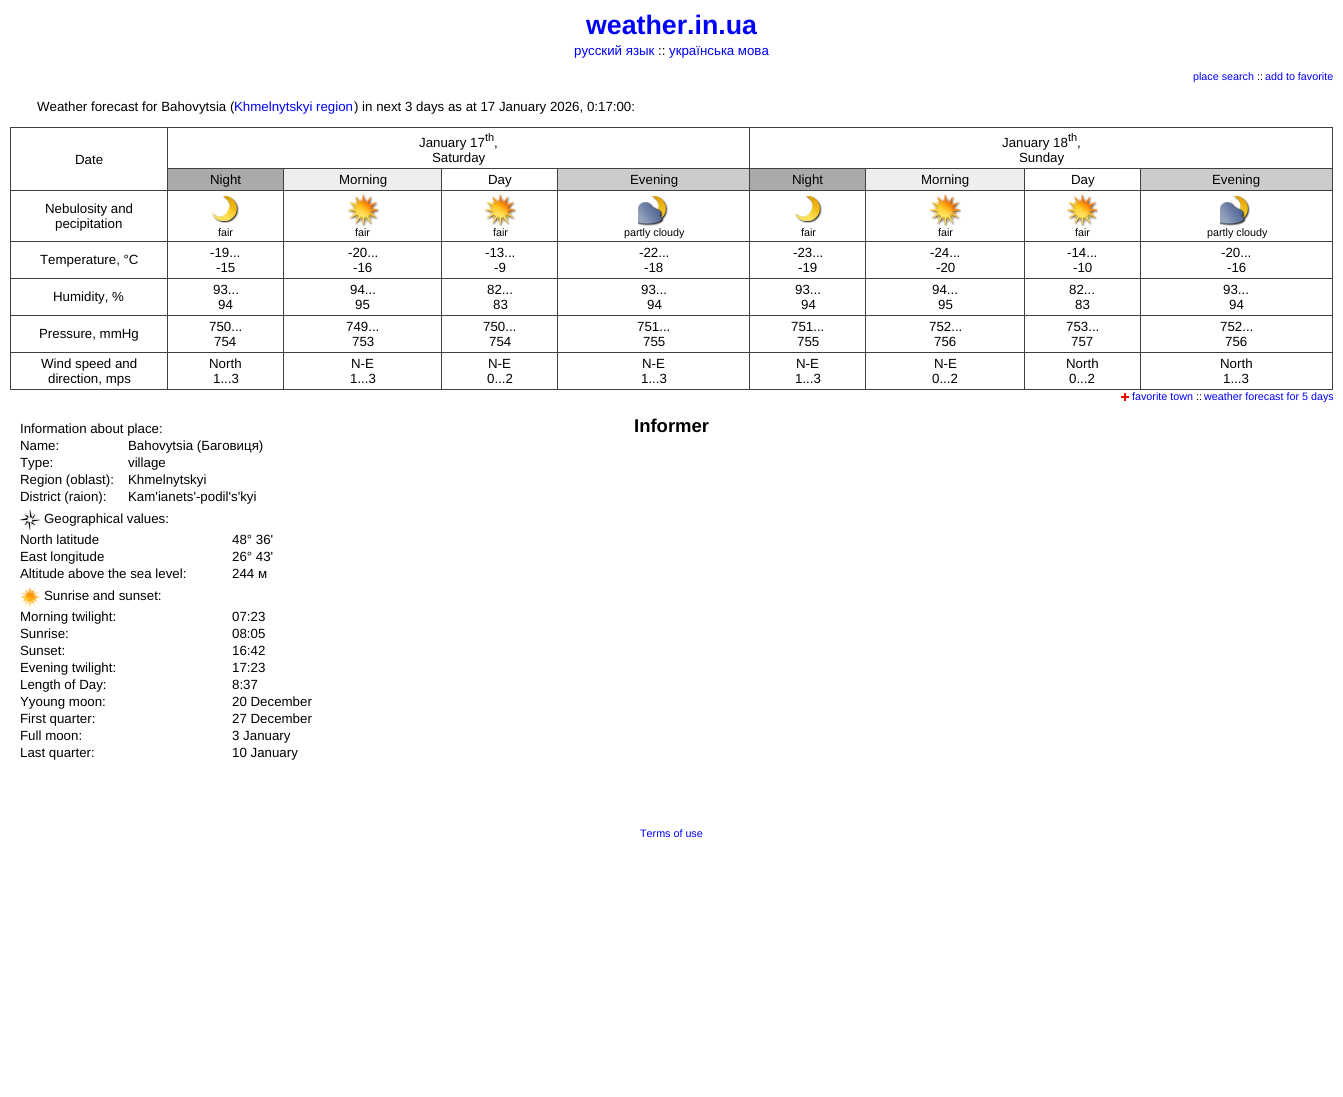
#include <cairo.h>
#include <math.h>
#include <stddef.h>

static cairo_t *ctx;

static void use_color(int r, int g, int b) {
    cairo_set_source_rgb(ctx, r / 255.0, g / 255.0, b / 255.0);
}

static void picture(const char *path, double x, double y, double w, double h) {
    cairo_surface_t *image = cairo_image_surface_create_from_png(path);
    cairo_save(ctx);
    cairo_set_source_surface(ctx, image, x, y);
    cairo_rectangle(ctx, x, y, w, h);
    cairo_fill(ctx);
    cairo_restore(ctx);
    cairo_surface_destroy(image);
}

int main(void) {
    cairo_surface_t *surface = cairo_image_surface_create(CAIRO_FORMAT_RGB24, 1343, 1097);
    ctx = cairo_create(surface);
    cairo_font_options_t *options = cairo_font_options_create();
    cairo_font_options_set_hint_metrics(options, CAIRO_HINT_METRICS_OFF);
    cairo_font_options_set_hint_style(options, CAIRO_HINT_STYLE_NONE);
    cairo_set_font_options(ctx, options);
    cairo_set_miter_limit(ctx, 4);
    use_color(255, 255, 255);
    cairo_paint(ctx);
    cairo_select_font_face(ctx, "Liberation Sans", CAIRO_FONT_SLANT_NORMAL, CAIRO_FONT_WEIGHT_BOLD);
    cairo_set_font_size(ctx, 26.75);
    use_color(0, 0, 255);
    cairo_move_to(ctx, 586, 34);
    cairo_show_text(ctx, "weather.in.ua");
    cairo_select_font_face(ctx, "Liberation Sans", CAIRO_FONT_SLANT_NORMAL, CAIRO_FONT_WEIGHT_NORMAL);
    cairo_set_font_size(ctx, 13.3);
    cairo_move_to(ctx, 574, 55);
    cairo_show_text(ctx, "русский язык");
    use_color(0, 0, 0);
    cairo_move_to(ctx, 658, 55);
    cairo_show_text(ctx, "::");
    use_color(0, 0, 255);
    cairo_move_to(ctx, 669, 55);
    cairo_show_text(ctx, "українська мова");
    cairo_set_font_size(ctx, 10.75);
    cairo_move_to(ctx, 1193, 80);
    cairo_show_text(ctx, "place search");
    use_color(0, 0, 0);
    cairo_move_to(ctx, 1257, 80);
    cairo_show_text(ctx, "::");
    use_color(0, 0, 255);
    cairo_move_to(ctx, 1265, 80);
    cairo_show_text(ctx, "add to favorite");
    cairo_set_font_size(ctx, 13.3);
    use_color(0, 0, 0);
    cairo_move_to(ctx, 37, 111);
    cairo_show_text(ctx, "Weather forecast for Bahovytsia (");
    use_color(0, 0, 255);
    cairo_move_to(ctx, 234, 111);
    cairo_show_text(ctx, "Khmelnytskyi region");
    use_color(0, 0, 0);
    cairo_move_to(ctx, 354, 111);
    cairo_show_text(ctx, ") in next 3 days as at 17 January 2026, 0:17:00:");
    use_color(64, 64, 64);
    cairo_rectangle(ctx, 749, 127, 584, 1);
    cairo_fill(ctx);
    cairo_rectangle(ctx, 1140, 168, 193, 1);
    cairo_fill(ctx);
    cairo_rectangle(ctx, 1140, 190, 193, 1);
    cairo_fill(ctx);
    cairo_rectangle(ctx, 1140, 241, 193, 1);
    cairo_fill(ctx);
    cairo_rectangle(ctx, 1140, 278, 193, 1);
    cairo_fill(ctx);
    cairo_rectangle(ctx, 1140, 315, 193, 1);
    cairo_fill(ctx);
    cairo_rectangle(ctx, 1140, 352, 193, 1);
    cairo_fill(ctx);
    cairo_rectangle(ctx, 1332, 352, 1, 38);
    cairo_fill(ctx);
    cairo_rectangle(ctx, 1140, 389, 193, 1);
    cairo_fill(ctx);
    cairo_rectangle(ctx, 1140, 352, 1, 38);
    cairo_fill(ctx);
    cairo_rectangle(ctx, 1024, 352, 117, 1);
    cairo_fill(ctx);
    cairo_rectangle(ctx, 1140, 315, 1, 38);
    cairo_fill(ctx);
    cairo_rectangle(ctx, 1024, 315, 117, 1);
    cairo_fill(ctx);
    cairo_rectangle(ctx, 1140, 278, 1, 38);
    cairo_fill(ctx);
    cairo_rectangle(ctx, 1024, 278, 117, 1);
    cairo_fill(ctx);
    cairo_rectangle(ctx, 1140, 241, 1, 38);
    cairo_fill(ctx);
    cairo_rectangle(ctx, 1024, 241, 117, 1);
    cairo_fill(ctx);
    cairo_rectangle(ctx, 1140, 190, 1, 52);
    cairo_fill(ctx);
    cairo_rectangle(ctx, 1024, 190, 117, 1);
    cairo_fill(ctx);
    cairo_rectangle(ctx, 1140, 168, 1, 23);
    cairo_fill(ctx);
    cairo_rectangle(ctx, 1024, 168, 117, 1);
    cairo_fill(ctx);
    cairo_rectangle(ctx, 1024, 389, 117, 1);
    cairo_fill(ctx);
    cairo_rectangle(ctx, 1024, 352, 1, 38);
    cairo_fill(ctx);
    cairo_rectangle(ctx, 865, 352, 160, 1);
    cairo_fill(ctx);
    cairo_rectangle(ctx, 1024, 315, 1, 38);
    cairo_fill(ctx);
    cairo_rectangle(ctx, 865, 315, 160, 1);
    cairo_fill(ctx);
    cairo_rectangle(ctx, 1024, 278, 1, 38);
    cairo_fill(ctx);
    cairo_rectangle(ctx, 865, 278, 160, 1);
    cairo_fill(ctx);
    cairo_rectangle(ctx, 1024, 241, 1, 38);
    cairo_fill(ctx);
    cairo_rectangle(ctx, 865, 241, 160, 1);
    cairo_fill(ctx);
    cairo_rectangle(ctx, 1024, 190, 1, 52);
    cairo_fill(ctx);
    cairo_rectangle(ctx, 865, 190, 160, 1);
    cairo_fill(ctx);
    cairo_rectangle(ctx, 1024, 168, 1, 23);
    cairo_fill(ctx);
    cairo_rectangle(ctx, 865, 168, 160, 1);
    cairo_fill(ctx);
    cairo_rectangle(ctx, 865, 389, 160, 1);
    cairo_fill(ctx);
    cairo_rectangle(ctx, 865, 352, 1, 38);
    cairo_fill(ctx);
    cairo_rectangle(ctx, 749, 352, 117, 1);
    cairo_fill(ctx);
    cairo_rectangle(ctx, 865, 315, 1, 38);
    cairo_fill(ctx);
    cairo_rectangle(ctx, 749, 315, 117, 1);
    cairo_fill(ctx);
    cairo_rectangle(ctx, 865, 278, 1, 38);
    cairo_fill(ctx);
    cairo_rectangle(ctx, 749, 278, 117, 1);
    cairo_fill(ctx);
    cairo_rectangle(ctx, 865, 241, 1, 38);
    cairo_fill(ctx);
    cairo_rectangle(ctx, 749, 241, 117, 1);
    cairo_fill(ctx);
    cairo_rectangle(ctx, 865, 190, 1, 52);
    cairo_fill(ctx);
    cairo_rectangle(ctx, 749, 190, 117, 1);
    cairo_fill(ctx);
    cairo_rectangle(ctx, 865, 168, 1, 23);
    cairo_fill(ctx);
    cairo_rectangle(ctx, 749, 168, 117, 1);
    cairo_fill(ctx);
    cairo_rectangle(ctx, 749, 389, 117, 1);
    cairo_fill(ctx);
    cairo_rectangle(ctx, 749, 352, 1, 38);
    cairo_fill(ctx);
    cairo_rectangle(ctx, 557, 352, 193, 1);
    cairo_fill(ctx);
    cairo_rectangle(ctx, 749, 315, 1, 38);
    cairo_fill(ctx);
    cairo_rectangle(ctx, 557, 315, 193, 1);
    cairo_fill(ctx);
    cairo_rectangle(ctx, 749, 278, 1, 38);
    cairo_fill(ctx);
    cairo_rectangle(ctx, 557, 278, 193, 1);
    cairo_fill(ctx);
    cairo_rectangle(ctx, 749, 241, 1, 38);
    cairo_fill(ctx);
    cairo_rectangle(ctx, 557, 241, 193, 1);
    cairo_fill(ctx);
    cairo_rectangle(ctx, 749, 190, 1, 52);
    cairo_fill(ctx);
    cairo_rectangle(ctx, 557, 190, 193, 1);
    cairo_fill(ctx);
    cairo_rectangle(ctx, 749, 168, 1, 23);
    cairo_fill(ctx);
    cairo_rectangle(ctx, 557, 168, 193, 1);
    cairo_fill(ctx);
    cairo_rectangle(ctx, 749, 127, 1, 42);
    cairo_fill(ctx);
    cairo_rectangle(ctx, 167, 127, 583, 1);
    cairo_fill(ctx);
    cairo_rectangle(ctx, 557, 389, 193, 1);
    cairo_fill(ctx);
    cairo_rectangle(ctx, 557, 352, 1, 38);
    cairo_fill(ctx);
    cairo_rectangle(ctx, 441, 352, 117, 1);
    cairo_fill(ctx);
    cairo_rectangle(ctx, 557, 315, 1, 38);
    cairo_fill(ctx);
    cairo_rectangle(ctx, 441, 315, 117, 1);
    cairo_fill(ctx);
    cairo_rectangle(ctx, 557, 278, 1, 38);
    cairo_fill(ctx);
    cairo_rectangle(ctx, 441, 278, 117, 1);
    cairo_fill(ctx);
    cairo_rectangle(ctx, 557, 241, 1, 38);
    cairo_fill(ctx);
    cairo_rectangle(ctx, 441, 241, 117, 1);
    cairo_fill(ctx);
    cairo_rectangle(ctx, 557, 190, 1, 52);
    cairo_fill(ctx);
    cairo_rectangle(ctx, 441, 190, 117, 1);
    cairo_fill(ctx);
    cairo_rectangle(ctx, 557, 168, 1, 23);
    cairo_fill(ctx);
    cairo_rectangle(ctx, 441, 168, 117, 1);
    cairo_fill(ctx);
    cairo_rectangle(ctx, 441, 389, 117, 1);
    cairo_fill(ctx);
    cairo_rectangle(ctx, 441, 352, 1, 38);
    cairo_fill(ctx);
    cairo_rectangle(ctx, 283, 352, 159, 1);
    cairo_fill(ctx);
    cairo_rectangle(ctx, 441, 315, 1, 38);
    cairo_fill(ctx);
    cairo_rectangle(ctx, 283, 315, 159, 1);
    cairo_fill(ctx);
    cairo_rectangle(ctx, 441, 278, 1, 38);
    cairo_fill(ctx);
    cairo_rectangle(ctx, 283, 278, 159, 1);
    cairo_fill(ctx);
    cairo_rectangle(ctx, 441, 241, 1, 38);
    cairo_fill(ctx);
    cairo_rectangle(ctx, 283, 241, 159, 1);
    cairo_fill(ctx);
    cairo_rectangle(ctx, 441, 190, 1, 52);
    cairo_fill(ctx);
    cairo_rectangle(ctx, 283, 190, 159, 1);
    cairo_fill(ctx);
    cairo_rectangle(ctx, 441, 168, 1, 23);
    cairo_fill(ctx);
    cairo_rectangle(ctx, 283, 168, 159, 1);
    cairo_fill(ctx);
    cairo_rectangle(ctx, 283, 389, 159, 1);
    cairo_fill(ctx);
    cairo_rectangle(ctx, 283, 352, 1, 38);
    cairo_fill(ctx);
    cairo_rectangle(ctx, 167, 352, 117, 1);
    cairo_fill(ctx);
    cairo_rectangle(ctx, 283, 315, 1, 38);
    cairo_fill(ctx);
    cairo_rectangle(ctx, 167, 315, 117, 1);
    cairo_fill(ctx);
    cairo_rectangle(ctx, 283, 278, 1, 38);
    cairo_fill(ctx);
    cairo_rectangle(ctx, 167, 278, 117, 1);
    cairo_fill(ctx);
    cairo_rectangle(ctx, 283, 241, 1, 38);
    cairo_fill(ctx);
    cairo_rectangle(ctx, 167, 241, 117, 1);
    cairo_fill(ctx);
    cairo_rectangle(ctx, 283, 190, 1, 52);
    cairo_fill(ctx);
    cairo_rectangle(ctx, 167, 190, 117, 1);
    cairo_fill(ctx);
    cairo_rectangle(ctx, 283, 168, 1, 23);
    cairo_fill(ctx);
    cairo_rectangle(ctx, 167, 168, 117, 1);
    cairo_fill(ctx);
    cairo_rectangle(ctx, 167, 389, 117, 1);
    cairo_fill(ctx);
    cairo_rectangle(ctx, 167, 352, 1, 38);
    cairo_fill(ctx);
    cairo_rectangle(ctx, 10, 352, 158, 1);
    cairo_fill(ctx);
    cairo_rectangle(ctx, 167, 315, 1, 38);
    cairo_fill(ctx);
    cairo_rectangle(ctx, 10, 315, 158, 1);
    cairo_fill(ctx);
    cairo_rectangle(ctx, 167, 278, 1, 38);
    cairo_fill(ctx);
    cairo_rectangle(ctx, 10, 278, 158, 1);
    cairo_fill(ctx);
    cairo_rectangle(ctx, 167, 241, 1, 38);
    cairo_fill(ctx);
    cairo_rectangle(ctx, 10, 241, 158, 1);
    cairo_fill(ctx);
    cairo_rectangle(ctx, 167, 190, 1, 52);
    cairo_fill(ctx);
    cairo_rectangle(ctx, 10, 190, 158, 1);
    cairo_fill(ctx);
    cairo_rectangle(ctx, 167, 168, 1, 23);
    cairo_fill(ctx);
    cairo_rectangle(ctx, 167, 127, 1, 42);
    cairo_fill(ctx);
    cairo_rectangle(ctx, 10, 127, 158, 1);
    cairo_fill(ctx);
    cairo_rectangle(ctx, 10, 389, 158, 1);
    cairo_fill(ctx);
    cairo_rectangle(ctx, 10, 352, 1, 38);
    cairo_fill(ctx);
    cairo_rectangle(ctx, 10, 315, 1, 38);
    cairo_fill(ctx);
    cairo_rectangle(ctx, 10, 278, 1, 38);
    cairo_fill(ctx);
    cairo_rectangle(ctx, 10, 241, 1, 38);
    cairo_fill(ctx);
    cairo_rectangle(ctx, 10, 190, 1, 52);
    cairo_fill(ctx);
    cairo_rectangle(ctx, 10, 127, 1, 64);
    cairo_fill(ctx);
    use_color(0, 0, 0);
    cairo_move_to(ctx, 75, 164);
    cairo_show_text(ctx, "Date");
    cairo_move_to(ctx, 419, 147);
    cairo_show_text(ctx, "January 17");
    cairo_set_font_size(ctx, 11);
    cairo_move_to(ctx, 485, 141);
    cairo_show_text(ctx, "th");
    cairo_set_font_size(ctx, 13.3);
    cairo_move_to(ctx, 494, 147);
    cairo_show_text(ctx, ",");
    cairo_move_to(ctx, 432, 162);
    cairo_show_text(ctx, "Saturday");
    use_color(64, 64, 64);
    cairo_rectangle(ctx, 1332, 315, 1, 38);
    cairo_fill(ctx);
    cairo_rectangle(ctx, 1332, 278, 1, 38);
    cairo_fill(ctx);
    cairo_rectangle(ctx, 1332, 241, 1, 38);
    cairo_fill(ctx);
    cairo_rectangle(ctx, 1332, 190, 1, 52);
    cairo_fill(ctx);
    cairo_rectangle(ctx, 1332, 168, 1, 23);
    cairo_fill(ctx);
    cairo_rectangle(ctx, 1332, 127, 1, 42);
    cairo_fill(ctx);
    use_color(0, 0, 0);
    cairo_move_to(ctx, 1002, 147);
    cairo_show_text(ctx, "January 18");
    cairo_set_font_size(ctx, 11);
    cairo_move_to(ctx, 1068, 141);
    cairo_show_text(ctx, "th");
    cairo_set_font_size(ctx, 13.3);
    cairo_move_to(ctx, 1077, 147);
    cairo_show_text(ctx, ",");
    cairo_move_to(ctx, 1019, 162);
    cairo_show_text(ctx, "Sunday");
    use_color(170, 170, 170);
    cairo_rectangle(ctx, 168, 169, 115, 21);
    cairo_fill(ctx);
    use_color(0, 0, 0);
    cairo_move_to(ctx, 210, 184);
    cairo_show_text(ctx, "Night");
    use_color(238, 238, 238);
    cairo_rectangle(ctx, 284, 169, 157, 21);
    cairo_fill(ctx);
    use_color(0, 0, 0);
    cairo_move_to(ctx, 339, 184);
    cairo_show_text(ctx, "Morning");
    cairo_move_to(ctx, 488, 184);
    cairo_show_text(ctx, "Day");
    use_color(204, 204, 204);
    cairo_rectangle(ctx, 558, 169, 191, 21);
    cairo_fill(ctx);
    use_color(0, 0, 0);
    cairo_move_to(ctx, 630, 184);
    cairo_show_text(ctx, "Evening");
    use_color(170, 170, 170);
    cairo_rectangle(ctx, 750, 169, 115, 21);
    cairo_fill(ctx);
    use_color(0, 0, 0);
    cairo_move_to(ctx, 792, 184);
    cairo_show_text(ctx, "Night");
    use_color(238, 238, 238);
    cairo_rectangle(ctx, 866, 169, 158, 21);
    cairo_fill(ctx);
    use_color(0, 0, 0);
    cairo_move_to(ctx, 921, 184);
    cairo_show_text(ctx, "Morning");
    cairo_move_to(ctx, 1071, 184);
    cairo_show_text(ctx, "Day");
    use_color(204, 204, 204);
    cairo_rectangle(ctx, 1141, 169, 191, 21);
    cairo_fill(ctx);
    use_color(0, 0, 0);
    cairo_move_to(ctx, 1212, 184);
    cairo_show_text(ctx, "Evening");
    cairo_move_to(ctx, 45, 213);
    cairo_show_text(ctx, "Nebulosity and");
    cairo_move_to(ctx, 55, 228);
    cairo_show_text(ctx, "pecipitation");
    picture("img1.png", 212, 196, 27, 27);
    cairo_set_font_size(ctx, 10.75);
    cairo_move_to(ctx, 218, 236);
    cairo_show_text(ctx, "fair");
    picture("img2.png", 347, 194, 32, 32);
    cairo_move_to(ctx, 355, 236);
    cairo_show_text(ctx, "fair");
    picture("img2.png", 484, 194, 32, 32);
    cairo_move_to(ctx, 493, 236);
    cairo_show_text(ctx, "fair");
    picture("img3.png", 638, 196, 30, 30);
    cairo_move_to(ctx, 624, 236);
    cairo_show_text(ctx, "partly cloudy");
    picture("img1.png", 795, 196, 27, 27);
    cairo_move_to(ctx, 801, 236);
    cairo_show_text(ctx, "fair");
    picture("img2.png", 929, 194, 32, 32);
    cairo_move_to(ctx, 938, 236);
    cairo_show_text(ctx, "fair");
    picture("img2.png", 1066, 194, 32, 32);
    cairo_move_to(ctx, 1075, 236);
    cairo_show_text(ctx, "fair");
    picture("img3.png", 1220, 196, 30, 30);
    cairo_move_to(ctx, 1207, 236);
    cairo_show_text(ctx, "partly cloudy");
    cairo_set_font_size(ctx, 13.3);
    cairo_move_to(ctx, 40, 264);
    cairo_show_text(ctx, "Temperature, °C");
    cairo_move_to(ctx, 210, 257);
    cairo_show_text(ctx, "-19...");
    cairo_move_to(ctx, 216, 272);
    cairo_show_text(ctx, "-15");
    cairo_move_to(ctx, 348, 257);
    cairo_show_text(ctx, "-20...");
    cairo_move_to(ctx, 353, 272);
    cairo_show_text(ctx, "-16");
    cairo_move_to(ctx, 485, 257);
    cairo_show_text(ctx, "-13...");
    cairo_move_to(ctx, 494, 272);
    cairo_show_text(ctx, "-9");
    cairo_move_to(ctx, 639, 257);
    cairo_show_text(ctx, "-22...");
    cairo_move_to(ctx, 644, 272);
    cairo_show_text(ctx, "-18");
    cairo_move_to(ctx, 793, 257);
    cairo_show_text(ctx, "-23...");
    cairo_move_to(ctx, 798, 272);
    cairo_show_text(ctx, "-19");
    cairo_move_to(ctx, 930, 257);
    cairo_show_text(ctx, "-24...");
    cairo_move_to(ctx, 936, 272);
    cairo_show_text(ctx, "-20");
    cairo_move_to(ctx, 1067, 257);
    cairo_show_text(ctx, "-14...");
    cairo_move_to(ctx, 1073, 272);
    cairo_show_text(ctx, "-10");
    cairo_move_to(ctx, 1221, 257);
    cairo_show_text(ctx, "-20...");
    cairo_move_to(ctx, 1227, 272);
    cairo_show_text(ctx, "-16");
    cairo_move_to(ctx, 53, 301);
    cairo_show_text(ctx, "Humidity, %");
    cairo_move_to(ctx, 213, 294);
    cairo_show_text(ctx, "93...");
    cairo_move_to(ctx, 218, 309);
    cairo_show_text(ctx, "94");
    cairo_move_to(ctx, 350, 294);
    cairo_show_text(ctx, "94...");
    cairo_move_to(ctx, 355, 309);
    cairo_show_text(ctx, "95");
    cairo_move_to(ctx, 487, 294);
    cairo_show_text(ctx, "82...");
    cairo_move_to(ctx, 493, 309);
    cairo_show_text(ctx, "83");
    cairo_move_to(ctx, 641, 294);
    cairo_show_text(ctx, "93...");
    cairo_move_to(ctx, 647, 309);
    cairo_show_text(ctx, "94");
    cairo_move_to(ctx, 795, 294);
    cairo_show_text(ctx, "93...");
    cairo_move_to(ctx, 801, 309);
    cairo_show_text(ctx, "94");
    cairo_move_to(ctx, 932, 294);
    cairo_show_text(ctx, "94...");
    cairo_move_to(ctx, 938, 309);
    cairo_show_text(ctx, "95");
    cairo_move_to(ctx, 1069, 294);
    cairo_show_text(ctx, "82...");
    cairo_move_to(ctx, 1075, 309);
    cairo_show_text(ctx, "83");
    cairo_move_to(ctx, 1223, 294);
    cairo_show_text(ctx, "93...");
    cairo_move_to(ctx, 1229, 309);
    cairo_show_text(ctx, "94");
    cairo_move_to(ctx, 39, 338);
    cairo_show_text(ctx, "Pressure, mmHg");
    cairo_move_to(ctx, 209, 331);
    cairo_show_text(ctx, "750...");
    cairo_move_to(ctx, 214, 346);
    cairo_show_text(ctx, "754");
    cairo_move_to(ctx, 346, 331);
    cairo_show_text(ctx, "749...");
    cairo_move_to(ctx, 352, 346);
    cairo_show_text(ctx, "753");
    cairo_move_to(ctx, 483, 331);
    cairo_show_text(ctx, "750...");
    cairo_move_to(ctx, 489, 346);
    cairo_show_text(ctx, "754");
    cairo_move_to(ctx, 637, 331);
    cairo_show_text(ctx, "751...");
    cairo_move_to(ctx, 643, 346);
    cairo_show_text(ctx, "755");
    cairo_move_to(ctx, 791, 331);
    cairo_show_text(ctx, "751...");
    cairo_move_to(ctx, 797, 346);
    cairo_show_text(ctx, "755");
    cairo_move_to(ctx, 929, 331);
    cairo_show_text(ctx, "752...");
    cairo_move_to(ctx, 934, 346);
    cairo_show_text(ctx, "756");
    cairo_move_to(ctx, 1066, 331);
    cairo_show_text(ctx, "753...");
    cairo_move_to(ctx, 1071, 346);
    cairo_show_text(ctx, "757");
    cairo_move_to(ctx, 1220, 331);
    cairo_show_text(ctx, "752...");
    cairo_move_to(ctx, 1225, 346);
    cairo_show_text(ctx, "756");
    cairo_move_to(ctx, 41, 368);
    cairo_show_text(ctx, "Wind speed and");
    cairo_move_to(ctx, 48, 383);
    cairo_show_text(ctx, "direction, mps");
    cairo_move_to(ctx, 209, 368);
    cairo_show_text(ctx, "North");
    cairo_move_to(ctx, 213, 383);
    cairo_show_text(ctx, "1...3");
    cairo_move_to(ctx, 351, 368);
    cairo_show_text(ctx, "N-E");
    cairo_move_to(ctx, 350, 383);
    cairo_show_text(ctx, "1...3");
    cairo_move_to(ctx, 488, 368);
    cairo_show_text(ctx, "N-E");
    cairo_move_to(ctx, 487, 383);
    cairo_show_text(ctx, "0...2");
    cairo_move_to(ctx, 642, 368);
    cairo_show_text(ctx, "N-E");
    cairo_move_to(ctx, 641, 383);
    cairo_show_text(ctx, "1...3");
    cairo_move_to(ctx, 796, 368);
    cairo_show_text(ctx, "N-E");
    cairo_move_to(ctx, 795, 383);
    cairo_show_text(ctx, "1...3");
    cairo_move_to(ctx, 934, 368);
    cairo_show_text(ctx, "N-E");
    cairo_move_to(ctx, 932, 383);
    cairo_show_text(ctx, "0...2");
    cairo_move_to(ctx, 1066, 368);
    cairo_show_text(ctx, "North");
    cairo_move_to(ctx, 1069, 383);
    cairo_show_text(ctx, "0...2");
    cairo_move_to(ctx, 1220, 368);
    cairo_show_text(ctx, "North");
    cairo_move_to(ctx, 1223, 383);
    cairo_show_text(ctx, "1...3");
    picture("img4.png", 1121, 393, 8, 8);
    cairo_set_font_size(ctx, 10.75);
    use_color(0, 0, 255);
    cairo_move_to(ctx, 1132, 400);
    cairo_show_text(ctx, "favorite town");
    use_color(0, 0, 0);
    cairo_move_to(ctx, 1196, 400);
    cairo_show_text(ctx, "::");
    use_color(0, 0, 255);
    cairo_move_to(ctx, 1204, 400);
    cairo_show_text(ctx, "weather forecast for 5 days");
    cairo_set_font_size(ctx, 13.3);
    use_color(0, 0, 0);
    cairo_move_to(ctx, 20, 433);
    cairo_show_text(ctx, "Information about place:");
    cairo_move_to(ctx, 20, 450);
    cairo_show_text(ctx, "Name:");
    cairo_move_to(ctx, 128, 450);
    cairo_show_text(ctx, "Bahovytsia (Баговиця)");
    cairo_move_to(ctx, 20, 467);
    cairo_show_text(ctx, "Type:");
    cairo_move_to(ctx, 128, 467);
    cairo_show_text(ctx, "village");
    cairo_move_to(ctx, 20, 484);
    cairo_show_text(ctx, "Region (oblast):");
    cairo_move_to(ctx, 128, 484);
    cairo_show_text(ctx, "Khmelnytskyi");
    cairo_move_to(ctx, 20, 501);
    cairo_show_text(ctx, "District (raion):");
    cairo_move_to(ctx, 128, 501);
    cairo_show_text(ctx, "Kam'ianets'-podil's'kyi");
    picture("img5.png", 20, 510, 20, 20);
    cairo_move_to(ctx, 44, 523);
    cairo_show_text(ctx, "Geographical values:");
    cairo_move_to(ctx, 20, 544);
    cairo_show_text(ctx, "North latitude");
    cairo_move_to(ctx, 232, 544);
    cairo_show_text(ctx, "48° 36'");
    cairo_move_to(ctx, 20, 561);
    cairo_show_text(ctx, "East longitude");
    cairo_move_to(ctx, 232, 561);
    cairo_show_text(ctx, "26° 43'");
    cairo_move_to(ctx, 20, 578);
    cairo_show_text(ctx, "Altitude above the sea level:");
    cairo_move_to(ctx, 232, 578);
    cairo_show_text(ctx, "244 м");
    picture("img6.png", 20, 587, 20, 20);
    cairo_move_to(ctx, 44, 600);
    cairo_show_text(ctx, "Sunrise and sunset:");
    cairo_move_to(ctx, 20, 621);
    cairo_show_text(ctx, "Morning twilight:");
    cairo_move_to(ctx, 232, 621);
    cairo_show_text(ctx, "07:23");
    cairo_move_to(ctx, 20, 638);
    cairo_show_text(ctx, "Sunrise:");
    cairo_move_to(ctx, 232, 638);
    cairo_show_text(ctx, "08:05");
    cairo_move_to(ctx, 20, 655);
    cairo_show_text(ctx, "Sunset:");
    cairo_move_to(ctx, 232, 655);
    cairo_show_text(ctx, "16:42");
    cairo_move_to(ctx, 20, 672);
    cairo_show_text(ctx, "Evening twilight:");
    cairo_move_to(ctx, 232, 672);
    cairo_show_text(ctx, "17:23");
    cairo_move_to(ctx, 20, 689);
    cairo_show_text(ctx, "Length of Day:");
    cairo_move_to(ctx, 232, 689);
    cairo_show_text(ctx, "8:37");
    cairo_move_to(ctx, 20, 706);
    cairo_show_text(ctx, "Yyoung moon:");
    cairo_move_to(ctx, 232, 706);
    cairo_show_text(ctx, "20 December");
    cairo_move_to(ctx, 20, 723);
    cairo_show_text(ctx, "First quarter:");
    cairo_move_to(ctx, 232, 723);
    cairo_show_text(ctx, "27 December");
    cairo_move_to(ctx, 20, 740);
    cairo_show_text(ctx, "Full moon:");
    cairo_move_to(ctx, 232, 740);
    cairo_show_text(ctx, "3 January");
    cairo_move_to(ctx, 20, 757);
    cairo_show_text(ctx, "Last quarter:");
    cairo_move_to(ctx, 232, 757);
    cairo_show_text(ctx, "10 January");
    cairo_select_font_face(ctx, "Liberation Sans", CAIRO_FONT_SLANT_NORMAL, CAIRO_FONT_WEIGHT_BOLD);
    cairo_set_font_size(ctx, 18.5);
    cairo_move_to(ctx, 634, 432);
    cairo_show_text(ctx, "Informer");
    cairo_select_font_face(ctx, "Liberation Sans", CAIRO_FONT_SLANT_NORMAL, CAIRO_FONT_WEIGHT_NORMAL);
    cairo_set_font_size(ctx, 10.75);
    use_color(0, 0, 255);
    cairo_move_to(ctx, 640, 837);
    cairo_show_text(ctx, "Terms of use");
    cairo_surface_write_to_png(surface, "result.png");
    cairo_font_options_destroy(options);
    cairo_destroy(ctx);
    cairo_surface_destroy(surface);
    return 0;
}
